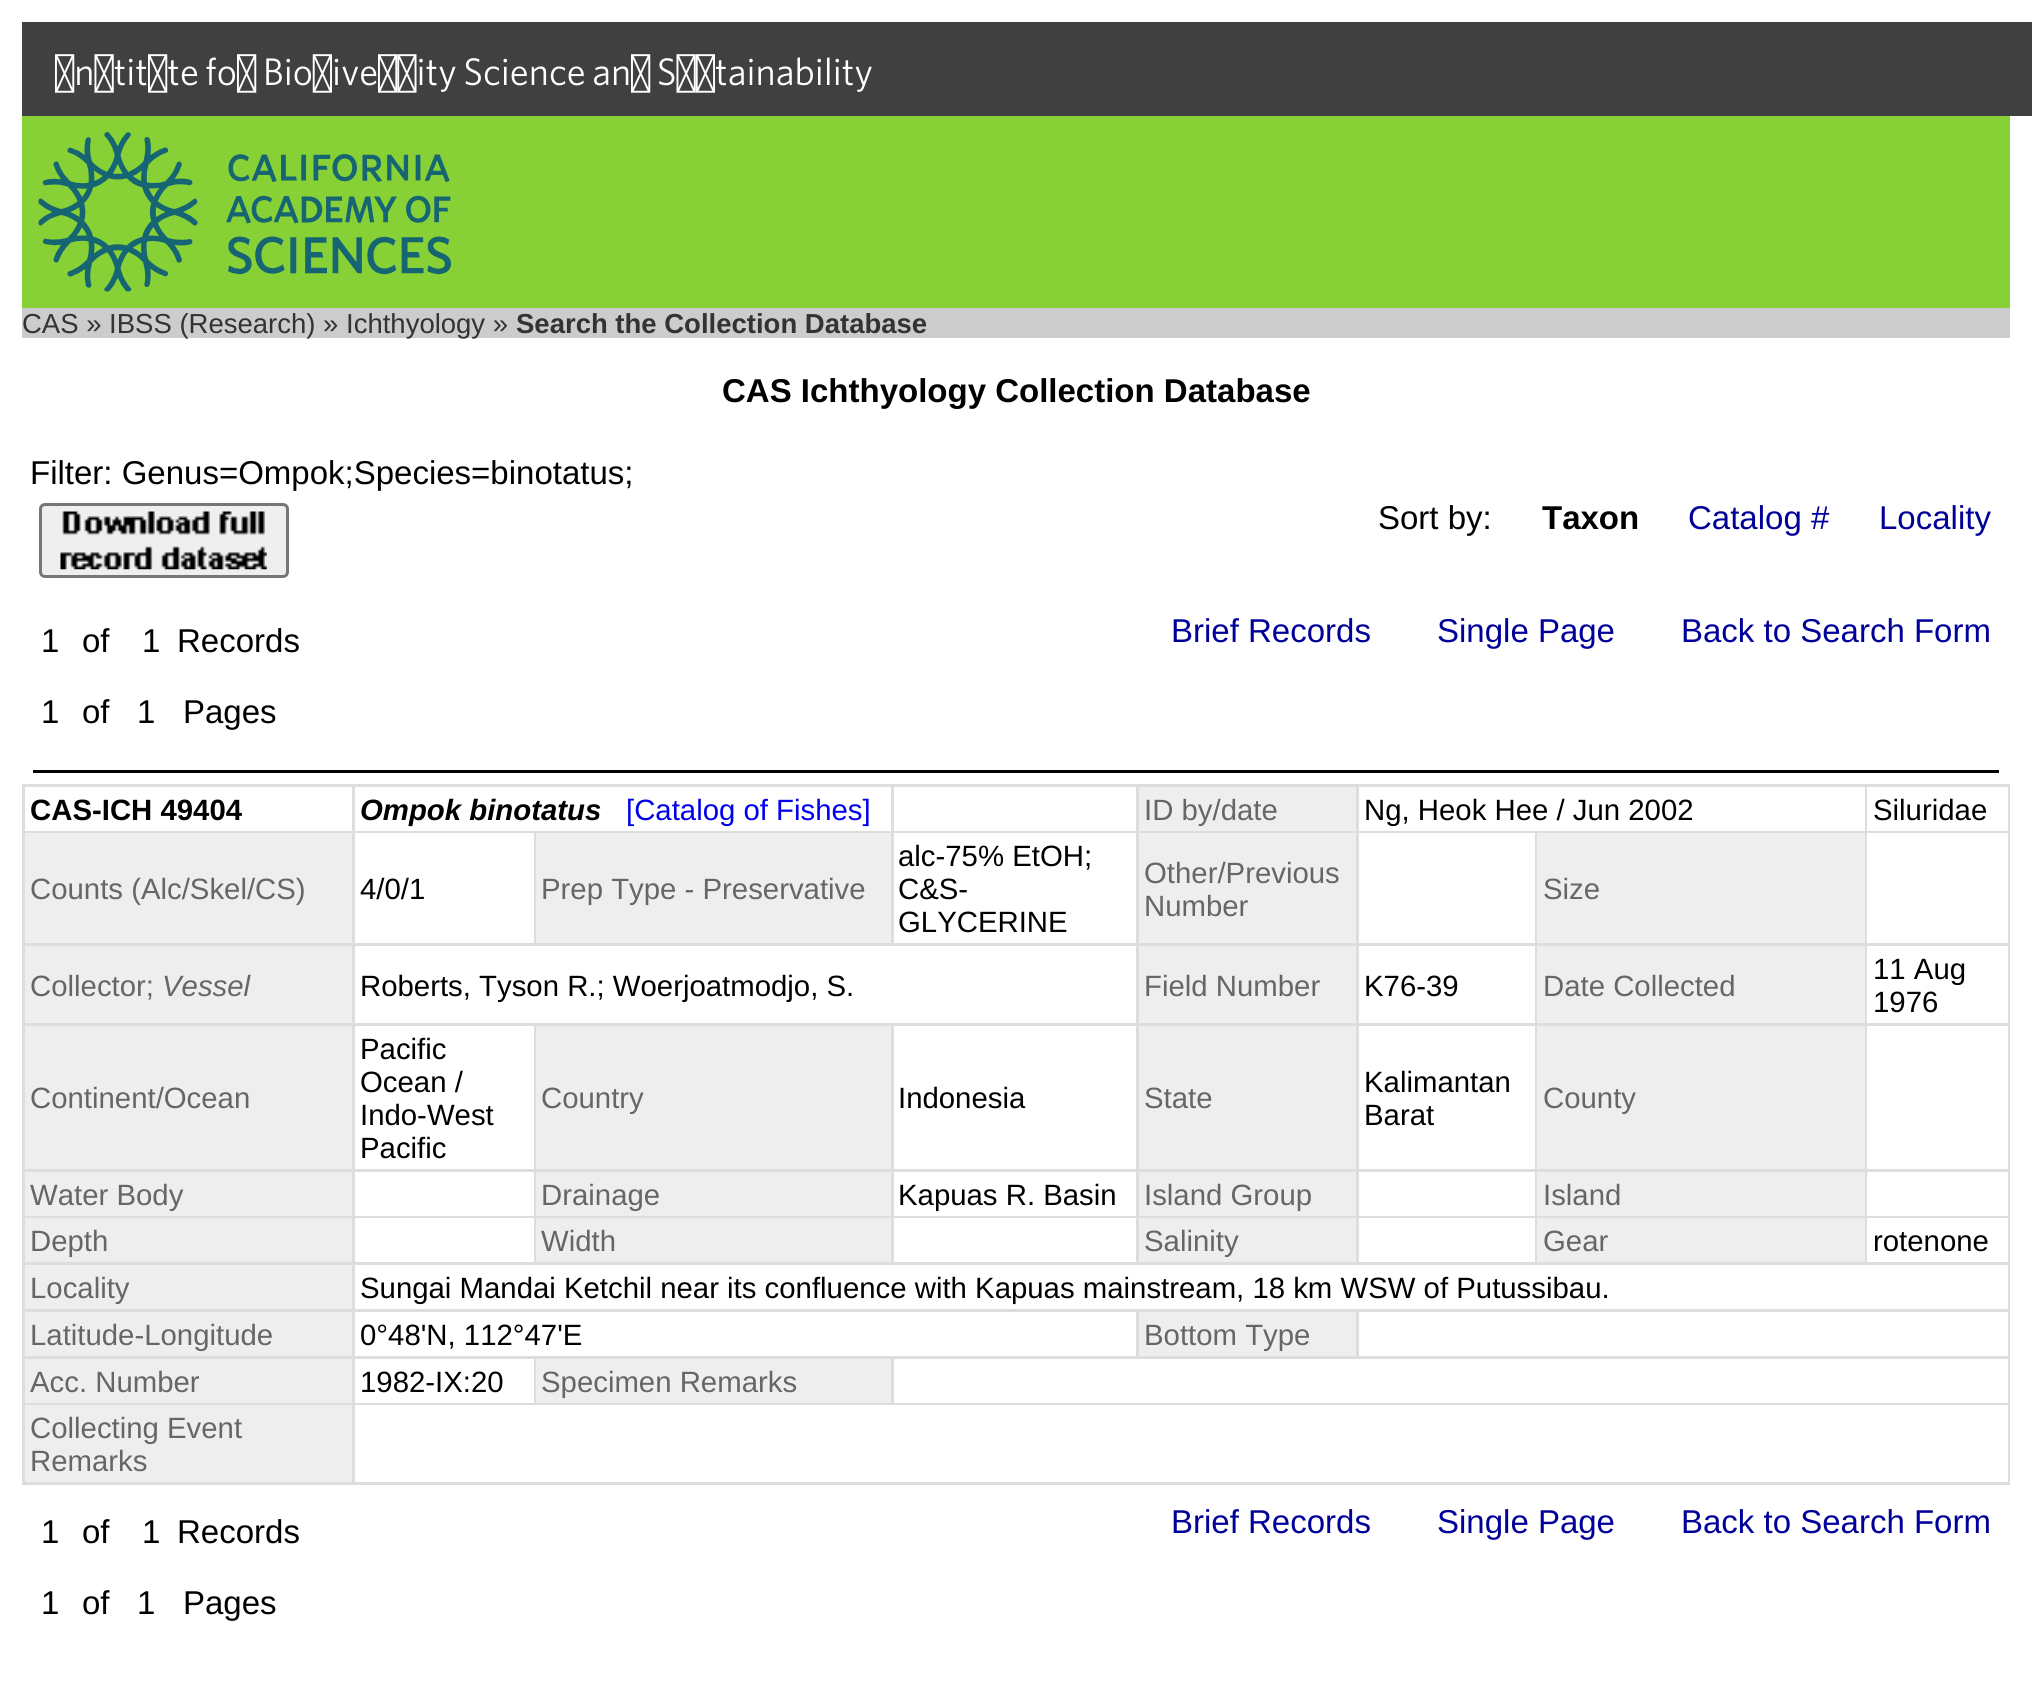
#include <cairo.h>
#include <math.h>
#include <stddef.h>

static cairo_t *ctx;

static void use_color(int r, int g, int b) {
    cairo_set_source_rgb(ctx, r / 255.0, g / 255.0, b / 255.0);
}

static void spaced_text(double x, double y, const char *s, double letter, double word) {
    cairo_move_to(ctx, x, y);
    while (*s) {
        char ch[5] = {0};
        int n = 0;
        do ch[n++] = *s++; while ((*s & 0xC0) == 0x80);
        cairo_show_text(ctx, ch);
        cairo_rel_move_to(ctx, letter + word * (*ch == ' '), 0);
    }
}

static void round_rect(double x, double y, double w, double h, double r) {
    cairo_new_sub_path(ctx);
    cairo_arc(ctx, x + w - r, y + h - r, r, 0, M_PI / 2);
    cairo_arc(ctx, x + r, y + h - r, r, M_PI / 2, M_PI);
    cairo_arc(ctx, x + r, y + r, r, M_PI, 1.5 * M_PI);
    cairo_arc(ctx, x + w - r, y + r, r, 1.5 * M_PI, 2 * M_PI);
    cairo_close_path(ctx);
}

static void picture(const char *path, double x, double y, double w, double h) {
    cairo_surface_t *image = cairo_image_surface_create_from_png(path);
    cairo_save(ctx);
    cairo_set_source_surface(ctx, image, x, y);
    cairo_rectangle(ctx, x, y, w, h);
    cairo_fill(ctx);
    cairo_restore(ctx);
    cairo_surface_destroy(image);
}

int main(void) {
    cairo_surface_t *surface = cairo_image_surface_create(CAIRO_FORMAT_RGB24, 2032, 1684);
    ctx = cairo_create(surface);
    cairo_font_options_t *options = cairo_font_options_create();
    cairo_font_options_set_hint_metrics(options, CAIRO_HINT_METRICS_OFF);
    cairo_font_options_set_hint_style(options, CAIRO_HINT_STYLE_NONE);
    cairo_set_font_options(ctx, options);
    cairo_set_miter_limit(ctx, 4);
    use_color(255, 255, 255);
    cairo_paint(ctx);
    use_color(64, 64, 64);
    cairo_rectangle(ctx, 22, 22, 2010, 94);
    cairo_fill(ctx);
    cairo_select_font_face(ctx, "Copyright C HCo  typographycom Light", CAIRO_FONT_SLANT_NORMAL, CAIRO_FONT_WEIGHT_NORMAL);
    cairo_set_font_size(ctx, 38.5);
    use_color(255, 255, 255);
    spaced_text(55, 85, "Institute for Biodiversity Science and Sustainability", 0, -2.25);
    use_color(135, 208, 54);
    cairo_rectangle(ctx, 22, 116, 1988, 192);
    cairo_fill(ctx);
    picture("img1.png", 38, 132, 413, 160);
    use_color(204, 204, 204);
    cairo_rectangle(ctx, 22, 308, 1988, 30);
    cairo_fill(ctx);
    cairo_select_font_face(ctx, "Liberation Sans", CAIRO_FONT_SLANT_NORMAL, CAIRO_FONT_WEIGHT_NORMAL);
    cairo_set_font_size(ctx, 27.5);
    use_color(51, 51, 51);
    cairo_move_to(ctx, 22, 333);
    cairo_show_text(ctx, "CAS » IBSS (Research) » Ichthyology »");
    cairo_select_font_face(ctx, "Liberation Sans", CAIRO_FONT_SLANT_NORMAL, CAIRO_FONT_WEIGHT_BOLD);
    cairo_move_to(ctx, 516, 333);
    cairo_show_text(ctx, "Search the Collection Database");
    cairo_set_font_size(ctx, 33);
    use_color(0, 0, 0);
    cairo_move_to(ctx, 722, 402);
    cairo_show_text(ctx, "CAS Ichthyology Collection Database");
    cairo_select_font_face(ctx, "Liberation Sans", CAIRO_FONT_SLANT_NORMAL, CAIRO_FONT_WEIGHT_NORMAL);
    cairo_move_to(ctx, 30, 484);
    cairo_show_text(ctx, "Filter: Genus=Ompok;Species=binotatus;");
    use_color(239, 239, 239);
    round_rect(40.5, 504.5, 247, 72, 4.5);
    cairo_fill_preserve(ctx);
    use_color(118, 118, 118);
    cairo_set_line_width(ctx, 3);
    cairo_stroke(ctx);
    picture("img2.png", 60, 511, 207, 59);
    use_color(0, 0, 0);
    cairo_move_to(ctx, 1378, 529);
    cairo_show_text(ctx, "Sort by:");
    cairo_select_font_face(ctx, "Liberation Sans", CAIRO_FONT_SLANT_NORMAL, CAIRO_FONT_WEIGHT_BOLD);
    cairo_move_to(ctx, 1542, 529);
    cairo_show_text(ctx, "Taxon");
    cairo_select_font_face(ctx, "Liberation Sans", CAIRO_FONT_SLANT_NORMAL, CAIRO_FONT_WEIGHT_NORMAL);
    use_color(0, 0, 153);
    cairo_move_to(ctx, 1688, 529);
    cairo_show_text(ctx, "Catalog #");
    cairo_move_to(ctx, 1879, 529);
    cairo_show_text(ctx, "Locality");
    use_color(0, 0, 0);
    cairo_move_to(ctx, 41, 652);
    cairo_show_text(ctx, "1");
    cairo_move_to(ctx, 82, 652);
    cairo_show_text(ctx, "of");
    cairo_move_to(ctx, 142, 652);
    cairo_show_text(ctx, "1");
    cairo_move_to(ctx, 177, 652);
    cairo_show_text(ctx, "Records");
    cairo_move_to(ctx, 41, 723);
    cairo_show_text(ctx, "1");
    cairo_move_to(ctx, 82, 723);
    cairo_show_text(ctx, "of");
    cairo_move_to(ctx, 137, 723);
    cairo_show_text(ctx, "1");
    cairo_move_to(ctx, 183, 723);
    cairo_show_text(ctx, "Pages");
    use_color(0, 0, 153);
    cairo_move_to(ctx, 1171, 642);
    cairo_show_text(ctx, "Brief Records");
    cairo_move_to(ctx, 1437, 642);
    cairo_show_text(ctx, "Single Page");
    cairo_move_to(ctx, 1681, 642);
    cairo_show_text(ctx, "Back to Search Form");
    use_color(0, 0, 0);
    cairo_rectangle(ctx, 33, 770, 1966, 3);
    cairo_fill(ctx);
    use_color(221, 221, 221);
    cairo_rectangle(ctx, 22, 784, 1988, 701);
    cairo_fill(ctx);
    use_color(255, 255, 255);
    cairo_rectangle(ctx, 25, 787, 327, 44);
    cairo_fill(ctx);
    cairo_select_font_face(ctx, "Liberation Sans", CAIRO_FONT_SLANT_NORMAL, CAIRO_FONT_WEIGHT_BOLD);
    cairo_set_font_size(ctx, 29.35);
    use_color(0, 0, 0);
    cairo_move_to(ctx, 30, 820);
    cairo_show_text(ctx, "CAS-ICH 49404");
    use_color(255, 255, 255);
    cairo_rectangle(ctx, 355, 787, 536, 44);
    cairo_fill(ctx);
    cairo_select_font_face(ctx, "Liberation Sans", CAIRO_FONT_SLANT_ITALIC, CAIRO_FONT_WEIGHT_BOLD);
    use_color(0, 0, 0);
    cairo_move_to(ctx, 360, 820);
    cairo_show_text(ctx, "Ompok binotatus");
    cairo_select_font_face(ctx, "Liberation Sans", CAIRO_FONT_SLANT_NORMAL, CAIRO_FONT_WEIGHT_NORMAL);
    use_color(0, 0, 238);
    cairo_move_to(ctx, 626, 820);
    cairo_show_text(ctx, "[Catalog of Fishes]");
    use_color(255, 255, 255);
    cairo_rectangle(ctx, 894, 787, 242, 44);
    cairo_fill(ctx);
    use_color(238, 238, 238);
    cairo_rectangle(ctx, 1139, 787, 217, 44);
    cairo_fill(ctx);
    use_color(102, 102, 102);
    cairo_move_to(ctx, 1144, 820);
    cairo_show_text(ctx, "ID by/date");
    use_color(255, 255, 255);
    cairo_rectangle(ctx, 1359, 787, 506, 44);
    cairo_fill(ctx);
    use_color(0, 0, 0);
    cairo_move_to(ctx, 1364, 820);
    cairo_show_text(ctx, "Ng, Heok Hee / Jun 2002");
    use_color(255, 255, 255);
    cairo_rectangle(ctx, 1867, 787, 141, 44);
    cairo_fill(ctx);
    use_color(0, 0, 0);
    cairo_move_to(ctx, 1873, 820);
    cairo_show_text(ctx, "Siluridae");
    use_color(238, 238, 238);
    cairo_rectangle(ctx, 25, 833, 327, 110);
    cairo_fill(ctx);
    use_color(102, 102, 102);
    cairo_move_to(ctx, 30, 899);
    cairo_show_text(ctx, "Counts (Alc/Skel/CS)");
    use_color(255, 255, 255);
    cairo_rectangle(ctx, 355, 833, 179, 110);
    cairo_fill(ctx);
    use_color(0, 0, 0);
    cairo_move_to(ctx, 360, 899);
    cairo_show_text(ctx, "4/0/1");
    use_color(238, 238, 238);
    cairo_rectangle(ctx, 536, 833, 355, 110);
    cairo_fill(ctx);
    use_color(102, 102, 102);
    cairo_move_to(ctx, 541, 899);
    cairo_show_text(ctx, "Prep Type - Preservative");
    use_color(255, 255, 255);
    cairo_rectangle(ctx, 894, 833, 242, 110);
    cairo_fill(ctx);
    use_color(0, 0, 0);
    cairo_move_to(ctx, 898, 866);
    cairo_show_text(ctx, "alc-75% EtOH;");
    cairo_move_to(ctx, 898, 899);
    cairo_show_text(ctx, "C&S-");
    cairo_move_to(ctx, 898, 932);
    cairo_show_text(ctx, "GLYCERINE");
    use_color(238, 238, 238);
    cairo_rectangle(ctx, 1139, 833, 217, 110);
    cairo_fill(ctx);
    use_color(102, 102, 102);
    cairo_move_to(ctx, 1144, 883);
    cairo_show_text(ctx, "Other/Previous");
    cairo_move_to(ctx, 1144, 916);
    cairo_show_text(ctx, "Number");
    use_color(255, 255, 255);
    cairo_rectangle(ctx, 1359, 833, 176, 110);
    cairo_fill(ctx);
    use_color(238, 238, 238);
    cairo_rectangle(ctx, 1537, 833, 328, 110);
    cairo_fill(ctx);
    use_color(102, 102, 102);
    cairo_move_to(ctx, 1543, 899);
    cairo_show_text(ctx, "Size");
    use_color(255, 255, 255);
    cairo_rectangle(ctx, 1867, 833, 141, 110);
    cairo_fill(ctx);
    use_color(238, 238, 238);
    cairo_rectangle(ctx, 25, 946, 327, 77);
    cairo_fill(ctx);
    use_color(102, 102, 102);
    cairo_move_to(ctx, 30, 996);
    cairo_show_text(ctx, "Collector;");
    cairo_select_font_face(ctx, "Liberation Sans", CAIRO_FONT_SLANT_ITALIC, CAIRO_FONT_WEIGHT_NORMAL);
    cairo_move_to(ctx, 162, 996);
    cairo_show_text(ctx, "Vessel");
    use_color(255, 255, 255);
    cairo_rectangle(ctx, 355, 946, 781, 77);
    cairo_fill(ctx);
    cairo_select_font_face(ctx, "Liberation Sans", CAIRO_FONT_SLANT_NORMAL, CAIRO_FONT_WEIGHT_NORMAL);
    use_color(0, 0, 0);
    cairo_move_to(ctx, 360, 996);
    cairo_show_text(ctx, "Roberts, Tyson R.; Woerjoatmodjo, S.");
    use_color(238, 238, 238);
    cairo_rectangle(ctx, 1139, 946, 217, 77);
    cairo_fill(ctx);
    use_color(102, 102, 102);
    cairo_move_to(ctx, 1144, 996);
    cairo_show_text(ctx, "Field Number");
    use_color(255, 255, 255);
    cairo_rectangle(ctx, 1359, 946, 176, 77);
    cairo_fill(ctx);
    use_color(0, 0, 0);
    cairo_move_to(ctx, 1364, 996);
    cairo_show_text(ctx, "K76-39");
    use_color(238, 238, 238);
    cairo_rectangle(ctx, 1537, 946, 328, 77);
    cairo_fill(ctx);
    use_color(102, 102, 102);
    cairo_move_to(ctx, 1543, 996);
    cairo_show_text(ctx, "Date Collected");
    use_color(255, 255, 255);
    cairo_rectangle(ctx, 1867, 946, 141, 77);
    cairo_fill(ctx);
    use_color(0, 0, 0);
    cairo_move_to(ctx, 1873, 979);
    cairo_show_text(ctx, "11 Aug");
    cairo_move_to(ctx, 1873, 1012);
    cairo_show_text(ctx, "1976");
    use_color(238, 238, 238);
    cairo_rectangle(ctx, 25, 1026, 327, 143);
    cairo_fill(ctx);
    use_color(102, 102, 102);
    cairo_move_to(ctx, 30, 1108);
    cairo_show_text(ctx, "Continent/Ocean");
    use_color(255, 255, 255);
    cairo_rectangle(ctx, 355, 1026, 179, 143);
    cairo_fill(ctx);
    use_color(0, 0, 0);
    cairo_move_to(ctx, 360, 1059);
    cairo_show_text(ctx, "Pacific");
    cairo_move_to(ctx, 360, 1092);
    cairo_show_text(ctx, "Ocean /");
    cairo_move_to(ctx, 360, 1125);
    cairo_show_text(ctx, "Indo-West");
    cairo_move_to(ctx, 360, 1158);
    cairo_show_text(ctx, "Pacific");
    use_color(238, 238, 238);
    cairo_rectangle(ctx, 536, 1026, 355, 143);
    cairo_fill(ctx);
    use_color(102, 102, 102);
    cairo_move_to(ctx, 541, 1108);
    cairo_show_text(ctx, "Country");
    use_color(255, 255, 255);
    cairo_rectangle(ctx, 894, 1026, 242, 143);
    cairo_fill(ctx);
    use_color(0, 0, 0);
    cairo_move_to(ctx, 898, 1108);
    cairo_show_text(ctx, "Indonesia");
    use_color(238, 238, 238);
    cairo_rectangle(ctx, 1139, 1026, 217, 143);
    cairo_fill(ctx);
    use_color(102, 102, 102);
    cairo_move_to(ctx, 1144, 1108);
    cairo_show_text(ctx, "State");
    use_color(255, 255, 255);
    cairo_rectangle(ctx, 1359, 1026, 176, 143);
    cairo_fill(ctx);
    use_color(0, 0, 0);
    cairo_move_to(ctx, 1364, 1092);
    cairo_show_text(ctx, "Kalimantan");
    cairo_move_to(ctx, 1364, 1125);
    cairo_show_text(ctx, "Barat");
    use_color(238, 238, 238);
    cairo_rectangle(ctx, 1537, 1026, 328, 143);
    cairo_fill(ctx);
    use_color(102, 102, 102);
    cairo_move_to(ctx, 1543, 1108);
    cairo_show_text(ctx, "County");
    use_color(255, 255, 255);
    cairo_rectangle(ctx, 1867, 1026, 141, 143);
    cairo_fill(ctx);
    use_color(238, 238, 238);
    cairo_rectangle(ctx, 25, 1172, 327, 44);
    cairo_fill(ctx);
    use_color(102, 102, 102);
    cairo_move_to(ctx, 30, 1205);
    cairo_show_text(ctx, "Water Body");
    use_color(255, 255, 255);
    cairo_rectangle(ctx, 355, 1172, 179, 44);
    cairo_fill(ctx);
    use_color(238, 238, 238);
    cairo_rectangle(ctx, 536, 1172, 355, 44);
    cairo_fill(ctx);
    use_color(102, 102, 102);
    cairo_move_to(ctx, 541, 1205);
    cairo_show_text(ctx, "Drainage");
    use_color(255, 255, 255);
    cairo_rectangle(ctx, 894, 1172, 242, 44);
    cairo_fill(ctx);
    use_color(0, 0, 0);
    cairo_move_to(ctx, 898, 1205);
    cairo_show_text(ctx, "Kapuas R. Basin");
    use_color(238, 238, 238);
    cairo_rectangle(ctx, 1139, 1172, 217, 44);
    cairo_fill(ctx);
    use_color(102, 102, 102);
    cairo_move_to(ctx, 1144, 1205);
    cairo_show_text(ctx, "Island Group");
    use_color(255, 255, 255);
    cairo_rectangle(ctx, 1359, 1172, 176, 44);
    cairo_fill(ctx);
    use_color(238, 238, 238);
    cairo_rectangle(ctx, 1537, 1172, 328, 44);
    cairo_fill(ctx);
    use_color(102, 102, 102);
    cairo_move_to(ctx, 1543, 1205);
    cairo_show_text(ctx, "Island");
    use_color(255, 255, 255);
    cairo_rectangle(ctx, 1867, 1172, 141, 44);
    cairo_fill(ctx);
    use_color(238, 238, 238);
    cairo_rectangle(ctx, 25, 1218, 327, 44);
    cairo_fill(ctx);
    use_color(102, 102, 102);
    cairo_move_to(ctx, 30, 1251);
    cairo_show_text(ctx, "Depth");
    use_color(255, 255, 255);
    cairo_rectangle(ctx, 355, 1218, 179, 44);
    cairo_fill(ctx);
    use_color(238, 238, 238);
    cairo_rectangle(ctx, 536, 1218, 355, 44);
    cairo_fill(ctx);
    use_color(102, 102, 102);
    cairo_move_to(ctx, 541, 1251);
    cairo_show_text(ctx, "Width");
    use_color(255, 255, 255);
    cairo_rectangle(ctx, 894, 1218, 242, 44);
    cairo_fill(ctx);
    use_color(238, 238, 238);
    cairo_rectangle(ctx, 1139, 1218, 217, 44);
    cairo_fill(ctx);
    use_color(102, 102, 102);
    cairo_move_to(ctx, 1144, 1251);
    cairo_show_text(ctx, "Salinity");
    use_color(255, 255, 255);
    cairo_rectangle(ctx, 1359, 1218, 176, 44);
    cairo_fill(ctx);
    use_color(238, 238, 238);
    cairo_rectangle(ctx, 1537, 1218, 328, 44);
    cairo_fill(ctx);
    use_color(102, 102, 102);
    cairo_move_to(ctx, 1543, 1251);
    cairo_show_text(ctx, "Gear");
    use_color(255, 255, 255);
    cairo_rectangle(ctx, 1867, 1218, 141, 44);
    cairo_fill(ctx);
    use_color(0, 0, 0);
    cairo_move_to(ctx, 1873, 1251);
    cairo_show_text(ctx, "rotenone");
    use_color(238, 238, 238);
    cairo_rectangle(ctx, 25, 1265, 327, 44);
    cairo_fill(ctx);
    use_color(102, 102, 102);
    cairo_move_to(ctx, 30, 1298);
    cairo_show_text(ctx, "Locality");
    use_color(255, 255, 255);
    cairo_rectangle(ctx, 355, 1265, 1653, 44);
    cairo_fill(ctx);
    use_color(0, 0, 0);
    cairo_move_to(ctx, 360, 1298);
    cairo_show_text(ctx, "Sungai Mandai Ketchil near its confluence with Kapuas mainstream, 18 km WSW of Putussibau.");
    use_color(238, 238, 238);
    cairo_rectangle(ctx, 25, 1312, 327, 44);
    cairo_fill(ctx);
    use_color(102, 102, 102);
    cairo_move_to(ctx, 30, 1345);
    cairo_show_text(ctx, "Latitude-Longitude");
    use_color(255, 255, 255);
    cairo_rectangle(ctx, 355, 1312, 781, 44);
    cairo_fill(ctx);
    use_color(0, 0, 0);
    cairo_move_to(ctx, 360, 1345);
    cairo_show_text(ctx, "0°48'N, 112°47'E");
    use_color(238, 238, 238);
    cairo_rectangle(ctx, 1139, 1312, 217, 44);
    cairo_fill(ctx);
    use_color(102, 102, 102);
    cairo_move_to(ctx, 1144, 1345);
    cairo_show_text(ctx, "Bottom Type");
    use_color(255, 255, 255);
    cairo_rectangle(ctx, 1359, 1312, 649, 44);
    cairo_fill(ctx);
    use_color(238, 238, 238);
    cairo_rectangle(ctx, 25, 1359, 327, 44);
    cairo_fill(ctx);
    use_color(102, 102, 102);
    cairo_move_to(ctx, 30, 1392);
    cairo_show_text(ctx, "Acc. Number");
    use_color(255, 255, 255);
    cairo_rectangle(ctx, 355, 1359, 179, 44);
    cairo_fill(ctx);
    use_color(0, 0, 0);
    cairo_move_to(ctx, 360, 1392);
    cairo_show_text(ctx, "1982-IX:20");
    use_color(238, 238, 238);
    cairo_rectangle(ctx, 536, 1359, 355, 44);
    cairo_fill(ctx);
    use_color(102, 102, 102);
    cairo_move_to(ctx, 541, 1392);
    cairo_show_text(ctx, "Specimen Remarks");
    use_color(255, 255, 255);
    cairo_rectangle(ctx, 894, 1359, 1114, 44);
    cairo_fill(ctx);
    use_color(238, 238, 238);
    cairo_rectangle(ctx, 25, 1405, 327, 77);
    cairo_fill(ctx);
    use_color(102, 102, 102);
    cairo_move_to(ctx, 30, 1438);
    cairo_show_text(ctx, "Collecting Event");
    cairo_move_to(ctx, 30, 1471);
    cairo_show_text(ctx, "Remarks");
    use_color(255, 255, 255);
    cairo_rectangle(ctx, 355, 1405, 1653, 77);
    cairo_fill(ctx);
    cairo_set_font_size(ctx, 33);
    use_color(0, 0, 0);
    cairo_move_to(ctx, 41, 1543);
    cairo_show_text(ctx, "1");
    cairo_move_to(ctx, 82, 1543);
    cairo_show_text(ctx, "of");
    cairo_move_to(ctx, 142, 1543);
    cairo_show_text(ctx, "1");
    cairo_move_to(ctx, 177, 1543);
    cairo_show_text(ctx, "Records");
    cairo_move_to(ctx, 41, 1614);
    cairo_show_text(ctx, "1");
    cairo_move_to(ctx, 82, 1614);
    cairo_show_text(ctx, "of");
    cairo_move_to(ctx, 137, 1614);
    cairo_show_text(ctx, "1");
    cairo_move_to(ctx, 183, 1614);
    cairo_show_text(ctx, "Pages");
    use_color(0, 0, 153);
    cairo_move_to(ctx, 1171, 1533);
    cairo_show_text(ctx, "Brief Records");
    cairo_move_to(ctx, 1437, 1533);
    cairo_show_text(ctx, "Single Page");
    cairo_move_to(ctx, 1681, 1533);
    cairo_show_text(ctx, "Back to Search Form");
    cairo_surface_write_to_png(surface, "result.png");
    cairo_font_options_destroy(options);
    cairo_destroy(ctx);
    cairo_surface_destroy(surface);
    return 0;
}
